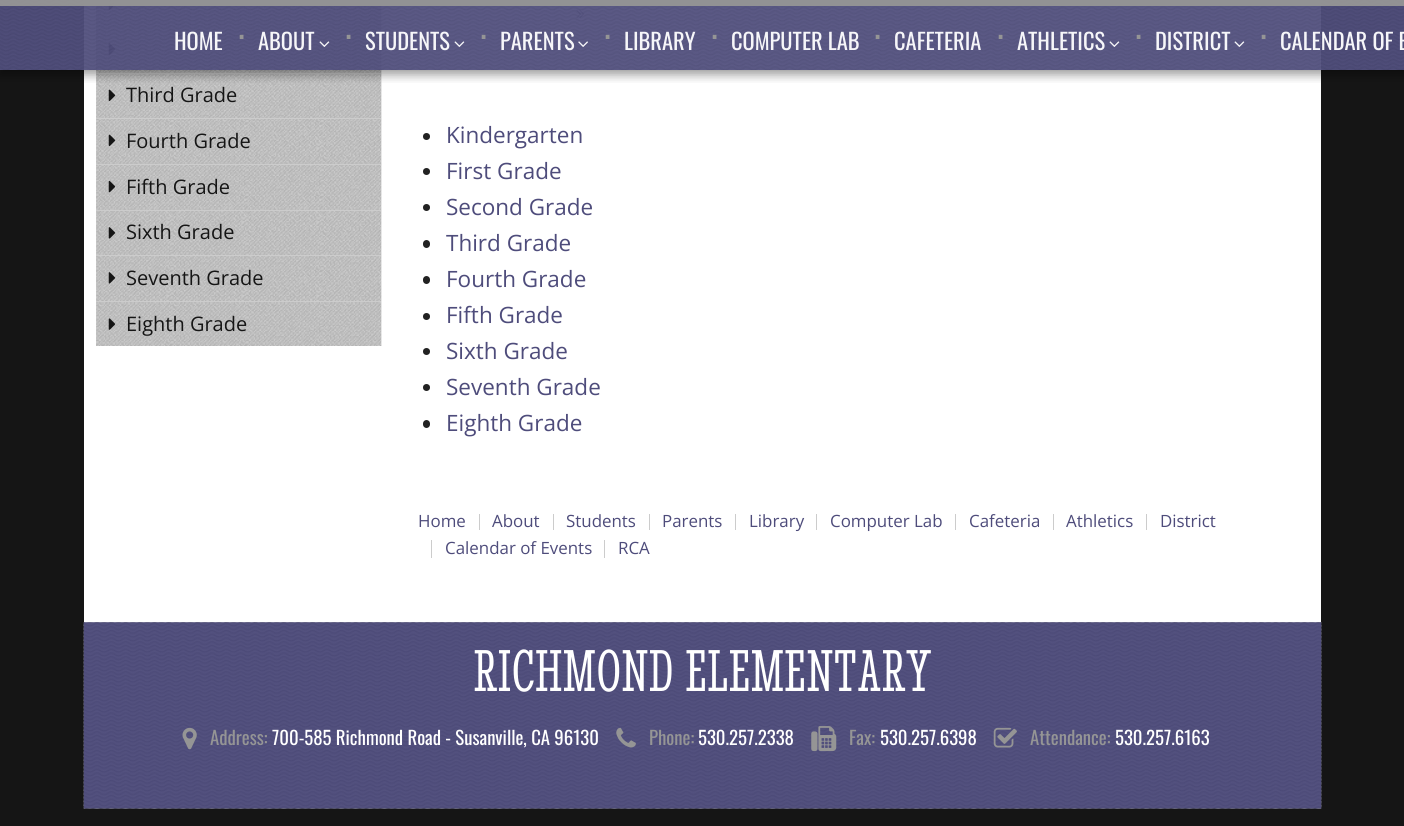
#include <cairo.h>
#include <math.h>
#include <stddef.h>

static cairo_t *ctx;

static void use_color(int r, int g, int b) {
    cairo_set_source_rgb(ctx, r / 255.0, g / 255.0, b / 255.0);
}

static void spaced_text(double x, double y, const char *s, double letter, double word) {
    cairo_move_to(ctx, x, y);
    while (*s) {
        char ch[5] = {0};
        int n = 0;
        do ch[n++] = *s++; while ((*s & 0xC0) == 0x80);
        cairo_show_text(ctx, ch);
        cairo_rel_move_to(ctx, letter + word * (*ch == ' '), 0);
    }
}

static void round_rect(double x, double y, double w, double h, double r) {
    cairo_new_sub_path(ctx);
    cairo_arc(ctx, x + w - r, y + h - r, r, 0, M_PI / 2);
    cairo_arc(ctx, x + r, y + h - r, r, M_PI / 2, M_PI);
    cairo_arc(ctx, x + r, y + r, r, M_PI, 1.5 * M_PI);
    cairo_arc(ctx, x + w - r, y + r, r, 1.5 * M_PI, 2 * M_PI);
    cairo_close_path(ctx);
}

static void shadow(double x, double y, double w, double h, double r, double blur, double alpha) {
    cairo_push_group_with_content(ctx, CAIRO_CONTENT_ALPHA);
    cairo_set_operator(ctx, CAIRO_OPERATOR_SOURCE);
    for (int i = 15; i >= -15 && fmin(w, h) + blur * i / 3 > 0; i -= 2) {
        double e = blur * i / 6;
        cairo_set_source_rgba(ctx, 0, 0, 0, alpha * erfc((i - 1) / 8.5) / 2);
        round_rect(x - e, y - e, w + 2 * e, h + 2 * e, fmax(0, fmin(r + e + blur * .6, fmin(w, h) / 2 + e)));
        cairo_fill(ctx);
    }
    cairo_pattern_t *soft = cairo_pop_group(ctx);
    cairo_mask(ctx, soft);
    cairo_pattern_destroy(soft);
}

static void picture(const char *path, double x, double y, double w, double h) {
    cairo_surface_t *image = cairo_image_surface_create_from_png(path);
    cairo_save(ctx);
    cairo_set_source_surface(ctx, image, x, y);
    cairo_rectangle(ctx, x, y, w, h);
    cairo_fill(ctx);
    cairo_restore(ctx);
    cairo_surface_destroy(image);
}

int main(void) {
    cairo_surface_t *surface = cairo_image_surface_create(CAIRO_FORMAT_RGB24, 1404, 826);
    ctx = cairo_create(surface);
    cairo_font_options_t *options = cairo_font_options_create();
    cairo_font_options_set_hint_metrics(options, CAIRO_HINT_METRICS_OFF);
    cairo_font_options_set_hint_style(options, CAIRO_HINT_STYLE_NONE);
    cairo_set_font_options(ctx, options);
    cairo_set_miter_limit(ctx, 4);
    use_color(21, 21, 21);
    cairo_paint(ctx);
    use_color(255, 255, 255);
    cairo_rectangle(ctx, 84, 0, 1237, 623);
    cairo_fill(ctx);
    picture("img7.png", 96, 0, 286, 346);
    picture("img8.png", 96, 0, 286, 346);
    picture("img9.png", 108, 0, 8, 10);
    picture("img10.png", 108, 43, 8, 12);
    use_color(204, 204, 204);
    cairo_rectangle(ctx, 96, 73, 285, 1);
    cairo_fill(ctx);
    picture("img11.png", 108, 89, 8, 12);
    picture("img17.png", 576, 10, 9, 8);
    cairo_save(ctx);
    cairo_rectangle(ctx, 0, 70, 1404, 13);
    cairo_clip(ctx);
    use_color(0, 0, 0);
    shadow(0, 0, 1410, 75, 0, 5, 0.38);
    cairo_restore(ctx);
    picture("img1.png", 0, 0, 1404, 70);
    cairo_set_source_rgba(ctx, 0.584, 0.584, 0.584, 0.95);
    cairo_rectangle(ctx, 0, 0, 1404, 6);
    cairo_fill(ctx);
    cairo_select_font_face(ctx, "Oswald", CAIRO_FONT_SLANT_NORMAL, CAIRO_FONT_WEIGHT_NORMAL);
    cairo_set_font_size(ctx, 22.5);
    use_color(246, 246, 249);
    cairo_move_to(ctx, 174, 50);
    cairo_show_text(ctx, "HOME");
    cairo_set_font_size(ctx, 35);
    use_color(149, 149, 149);
    cairo_move_to(ctx, 238, 39);
    cairo_show_text(ctx, ".");
    cairo_set_font_size(ctx, 22.5);
    use_color(246, 246, 249);
    cairo_move_to(ctx, 258, 50);
    cairo_show_text(ctx, "ABOUT");
    picture("img2.png", 319, 41, 11, 6);
    cairo_set_font_size(ctx, 35);
    use_color(149, 149, 149);
    cairo_move_to(ctx, 345, 39);
    cairo_show_text(ctx, ".");
    cairo_set_font_size(ctx, 22.5);
    use_color(246, 246, 249);
    cairo_move_to(ctx, 365, 50);
    cairo_show_text(ctx, "STUDENTS");
    picture("img3.png", 454, 41, 11, 6);
    cairo_set_font_size(ctx, 35);
    use_color(149, 149, 149);
    cairo_move_to(ctx, 480, 39);
    cairo_show_text(ctx, ".");
    cairo_set_font_size(ctx, 22.5);
    use_color(246, 246, 249);
    cairo_move_to(ctx, 500, 50);
    cairo_show_text(ctx, "PARENTS");
    picture("img4.png", 578, 41, 10, 6);
    cairo_set_font_size(ctx, 35);
    use_color(149, 149, 149);
    cairo_move_to(ctx, 604, 39);
    cairo_show_text(ctx, ".");
    cairo_set_font_size(ctx, 22.5);
    use_color(246, 246, 249);
    cairo_move_to(ctx, 624, 50);
    cairo_show_text(ctx, "LIBRARY");
    cairo_set_font_size(ctx, 35);
    use_color(149, 149, 149);
    cairo_move_to(ctx, 711, 39);
    cairo_show_text(ctx, ".");
    cairo_set_font_size(ctx, 22.5);
    use_color(246, 246, 249);
    cairo_move_to(ctx, 731, 50);
    cairo_show_text(ctx, "COMPUTER LAB");
    cairo_set_font_size(ctx, 35);
    use_color(149, 149, 149);
    cairo_move_to(ctx, 874, 39);
    cairo_show_text(ctx, ".");
    cairo_set_font_size(ctx, 22.5);
    use_color(246, 246, 249);
    cairo_move_to(ctx, 894, 50);
    cairo_show_text(ctx, "CAFETERIA");
    cairo_set_font_size(ctx, 35);
    use_color(149, 149, 149);
    cairo_move_to(ctx, 997, 39);
    cairo_show_text(ctx, ".");
    cairo_set_font_size(ctx, 22.5);
    use_color(246, 246, 249);
    cairo_move_to(ctx, 1017, 50);
    cairo_show_text(ctx, "ATHLETICS");
    picture("img5.png", 1109, 41, 11, 6);
    cairo_set_font_size(ctx, 35);
    use_color(149, 149, 149);
    cairo_move_to(ctx, 1135, 39);
    cairo_show_text(ctx, ".");
    cairo_set_font_size(ctx, 22.5);
    use_color(246, 246, 249);
    cairo_move_to(ctx, 1155, 50);
    cairo_show_text(ctx, "DISTRICT");
    picture("img6.png", 1234, 41, 11, 6);
    cairo_set_font_size(ctx, 35);
    use_color(149, 149, 149);
    cairo_move_to(ctx, 1260, 39);
    cairo_show_text(ctx, ".");
    cairo_set_font_size(ctx, 22.5);
    use_color(246, 246, 249);
    cairo_move_to(ctx, 1280, 50);
    cairo_show_text(ctx, "CALENDAR OF E");
    cairo_select_font_face(ctx, "Open Sans", CAIRO_FONT_SLANT_NORMAL, CAIRO_FONT_WEIGHT_NORMAL);
    cairo_set_font_size(ctx, 20);
    use_color(21, 21, 21);
    cairo_move_to(ctx, 126, 102);
    cairo_show_text(ctx, "Third Grade");
    use_color(204, 204, 204);
    cairo_rectangle(ctx, 96, 118, 285, 1);
    cairo_fill(ctx);
    picture("img12.png", 108, 134, 8, 12);
    use_color(21, 21, 21);
    cairo_move_to(ctx, 126, 148);
    cairo_show_text(ctx, "Fourth Grade");
    use_color(204, 204, 204);
    cairo_rectangle(ctx, 96, 164, 285, 1);
    cairo_fill(ctx);
    picture("img13.png", 108, 181, 8, 12);
    use_color(21, 21, 21);
    cairo_move_to(ctx, 126, 194);
    cairo_show_text(ctx, "Fifth Grade");
    use_color(204, 204, 204);
    cairo_rectangle(ctx, 96, 210, 285, 1);
    cairo_fill(ctx);
    picture("img14.png", 108, 227, 8, 12);
    use_color(21, 21, 21);
    cairo_move_to(ctx, 126, 239);
    cairo_show_text(ctx, "Sixth Grade");
    use_color(204, 204, 204);
    cairo_rectangle(ctx, 96, 255, 285, 1);
    cairo_fill(ctx);
    picture("img15.png", 108, 272, 8, 12);
    use_color(21, 21, 21);
    cairo_move_to(ctx, 126, 285);
    cairo_show_text(ctx, "Seventh Grade");
    use_color(204, 204, 204);
    cairo_rectangle(ctx, 96, 301, 285, 1);
    cairo_fill(ctx);
    picture("img16.png", 108, 318, 8, 12);
    use_color(21, 21, 21);
    cairo_move_to(ctx, 126, 331);
    cairo_show_text(ctx, "Eighth Grade");
    use_color(34, 34, 34);
    cairo_new_path(ctx);
    cairo_arc(ctx, 426.5, 136.5, 3.5, 0, 2 * M_PI);
    cairo_fill(ctx);
    cairo_set_font_size(ctx, 22.5);
    use_color(78, 76, 123);
    cairo_move_to(ctx, 446, 143);
    cairo_show_text(ctx, "Kindergarten");
    use_color(34, 34, 34);
    cairo_new_path(ctx);
    cairo_arc(ctx, 426.5, 171.5, 3.5, 0, 2 * M_PI);
    cairo_fill(ctx);
    use_color(78, 76, 123);
    cairo_move_to(ctx, 446, 179);
    cairo_show_text(ctx, "First Grade");
    use_color(34, 34, 34);
    cairo_new_path(ctx);
    cairo_arc(ctx, 426.5, 207.5, 3.5, 0, 2 * M_PI);
    cairo_fill(ctx);
    use_color(78, 76, 123);
    cairo_move_to(ctx, 446, 215);
    cairo_show_text(ctx, "Second Grade");
    use_color(34, 34, 34);
    round_rect(423, 240, 7, 8, 3.5);
    cairo_fill(ctx);
    use_color(78, 76, 123);
    cairo_move_to(ctx, 446, 251);
    cairo_show_text(ctx, "Third Grade");
    use_color(34, 34, 34);
    round_rect(423, 276, 7, 8, 3.5);
    cairo_fill(ctx);
    use_color(78, 76, 123);
    cairo_move_to(ctx, 446, 287);
    cairo_show_text(ctx, "Fourth Grade");
    use_color(34, 34, 34);
    cairo_new_path(ctx);
    cairo_arc(ctx, 426.5, 316.5, 3.5, 0, 2 * M_PI);
    cairo_fill(ctx);
    use_color(78, 76, 123);
    cairo_move_to(ctx, 446, 323);
    cairo_show_text(ctx, "Fifth Grade");
    use_color(34, 34, 34);
    cairo_new_path(ctx);
    cairo_arc(ctx, 426.5, 351.5, 3.5, 0, 2 * M_PI);
    cairo_fill(ctx);
    use_color(78, 76, 123);
    cairo_move_to(ctx, 446, 359);
    cairo_show_text(ctx, "Sixth Grade");
    use_color(34, 34, 34);
    cairo_new_path(ctx);
    cairo_arc(ctx, 426.5, 387.5, 3.5, 0, 2 * M_PI);
    cairo_fill(ctx);
    use_color(78, 76, 123);
    cairo_move_to(ctx, 446, 395);
    cairo_show_text(ctx, "Seventh Grade");
    use_color(34, 34, 34);
    round_rect(423, 420, 7, 8, 3.5);
    cairo_fill(ctx);
    use_color(78, 76, 123);
    cairo_move_to(ctx, 446, 431);
    cairo_show_text(ctx, "Eighth Grade");
    cairo_set_font_size(ctx, 16.9);
    cairo_move_to(ctx, 418, 527);
    cairo_show_text(ctx, "Home");
    use_color(204, 204, 204);
    cairo_rectangle(ctx, 479, 514, 1, 16);
    cairo_fill(ctx);
    use_color(78, 76, 123);
    cairo_move_to(ctx, 492, 527);
    cairo_show_text(ctx, "About");
    use_color(204, 204, 204);
    cairo_rectangle(ctx, 553, 514, 1, 16);
    cairo_fill(ctx);
    use_color(78, 76, 123);
    cairo_move_to(ctx, 566, 527);
    cairo_show_text(ctx, "Students");
    use_color(204, 204, 204);
    cairo_rectangle(ctx, 649, 514, 1, 16);
    cairo_fill(ctx);
    use_color(78, 76, 123);
    cairo_move_to(ctx, 662, 527);
    cairo_show_text(ctx, "Parents");
    use_color(204, 204, 204);
    cairo_rectangle(ctx, 735, 514, 1, 16);
    cairo_fill(ctx);
    use_color(78, 76, 123);
    cairo_move_to(ctx, 749, 527);
    cairo_show_text(ctx, "Library");
    use_color(204, 204, 204);
    cairo_rectangle(ctx, 816, 514, 1, 16);
    cairo_fill(ctx);
    use_color(78, 76, 123);
    cairo_move_to(ctx, 830, 527);
    cairo_show_text(ctx, "Computer Lab");
    use_color(204, 204, 204);
    cairo_rectangle(ctx, 955, 514, 1, 16);
    cairo_fill(ctx);
    use_color(78, 76, 123);
    cairo_move_to(ctx, 969, 527);
    cairo_show_text(ctx, "Cafeteria");
    use_color(204, 204, 204);
    cairo_rectangle(ctx, 1053, 514, 1, 16);
    cairo_fill(ctx);
    use_color(78, 76, 123);
    cairo_move_to(ctx, 1066, 527);
    cairo_show_text(ctx, "Athletics");
    use_color(204, 204, 204);
    cairo_rectangle(ctx, 1146, 514, 1, 16);
    cairo_fill(ctx);
    use_color(78, 76, 123);
    cairo_move_to(ctx, 1160, 527);
    cairo_show_text(ctx, "District");
    use_color(204, 204, 204);
    cairo_rectangle(ctx, 431, 540, 1, 18);
    cairo_fill(ctx);
    use_color(78, 76, 123);
    cairo_move_to(ctx, 445, 554);
    cairo_show_text(ctx, "Calendar of Events");
    use_color(204, 204, 204);
    cairo_rectangle(ctx, 604, 540, 1, 18);
    cairo_fill(ctx);
    use_color(78, 76, 123);
    cairo_move_to(ctx, 618, 554);
    cairo_show_text(ctx, "RCA");
    picture("img18.png", 83, 622, 1239, 187);
    cairo_select_font_face(ctx, "Stint Ultra Condensed", CAIRO_FONT_SLANT_NORMAL, CAIRO_FONT_WEIGHT_NORMAL);
    cairo_set_font_size(ctx, 61);
    use_color(255, 255, 255);
    spaced_text(474, 691, "RICHMOND ELEMENTARY", 1.25, 0);
    picture("img19.png", 182, 727, 15, 23);
    cairo_select_font_face(ctx, "Oswald", CAIRO_FONT_SLANT_NORMAL, CAIRO_FONT_WEIGHT_NORMAL);
    cairo_set_font_size(ctx, 18.75);
    use_color(149, 149, 149);
    cairo_move_to(ctx, 210, 745);
    cairo_show_text(ctx, "Address:");
    use_color(255, 255, 255);
    cairo_move_to(ctx, 272, 745);
    cairo_show_text(ctx, "700-585 Richmond Road - Susanville, CA 96130");
    picture("img20.png", 616, 727, 20, 21);
    use_color(149, 149, 149);
    cairo_move_to(ctx, 649, 745);
    cairo_show_text(ctx, "Phone:");
    use_color(255, 255, 255);
    cairo_move_to(ctx, 698, 745);
    cairo_show_text(ctx, "530.257.2338");
    picture("img21.png", 811, 726, 26, 26);
    use_color(149, 149, 149);
    cairo_move_to(ctx, 849, 745);
    cairo_show_text(ctx, "Fax:");
    use_color(255, 255, 255);
    cairo_move_to(ctx, 880, 745);
    cairo_show_text(ctx, "530.257.6398");
    picture("img22.png", 993, 727, 24, 21);
    use_color(149, 149, 149);
    cairo_move_to(ctx, 1030, 745);
    cairo_show_text(ctx, "Attendance:");
    use_color(255, 255, 255);
    cairo_move_to(ctx, 1115, 745);
    cairo_show_text(ctx, "530.257.6163");
    cairo_surface_write_to_png(surface, "result.png");
    cairo_font_options_destroy(options);
    cairo_destroy(ctx);
    cairo_surface_destroy(surface);
    return 0;
}
